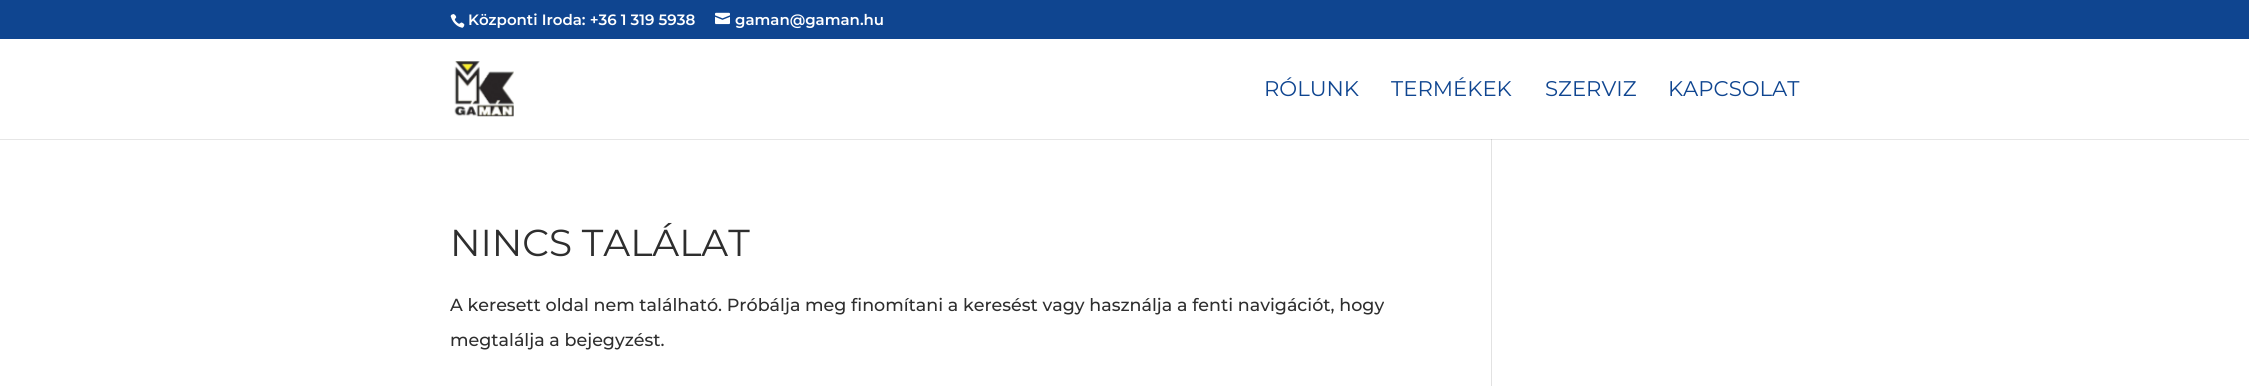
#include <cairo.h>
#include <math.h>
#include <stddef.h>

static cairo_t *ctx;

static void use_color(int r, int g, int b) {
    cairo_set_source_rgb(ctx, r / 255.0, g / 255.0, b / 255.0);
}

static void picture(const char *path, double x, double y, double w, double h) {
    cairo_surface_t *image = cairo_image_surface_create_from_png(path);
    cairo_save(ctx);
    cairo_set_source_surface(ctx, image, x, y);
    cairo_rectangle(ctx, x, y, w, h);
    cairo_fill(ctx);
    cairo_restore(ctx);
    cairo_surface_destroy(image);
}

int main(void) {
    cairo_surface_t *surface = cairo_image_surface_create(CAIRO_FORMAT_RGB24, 2249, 386);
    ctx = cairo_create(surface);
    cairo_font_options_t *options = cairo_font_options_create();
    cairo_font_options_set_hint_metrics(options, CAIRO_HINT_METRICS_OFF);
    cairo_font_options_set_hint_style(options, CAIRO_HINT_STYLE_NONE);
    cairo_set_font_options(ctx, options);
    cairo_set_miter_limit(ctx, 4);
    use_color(255, 255, 255);
    cairo_paint(ctx);
    use_color(230, 230, 230);
    cairo_rectangle(ctx, 0, 139, 2249, 1);
    cairo_fill(ctx);
    use_color(15, 69, 144);
    cairo_rectangle(ctx, 0, 0, 2249, 39);
    cairo_fill(ctx);
    picture("img1.png", 450, 14, 15, 14);
    cairo_select_font_face(ctx, "Montserrat SemiBold", CAIRO_FONT_SLANT_NORMAL, CAIRO_FONT_WEIGHT_NORMAL);
    cairo_set_font_size(ctx, 15);
    use_color(255, 255, 255);
    cairo_move_to(ctx, 468, 25);
    cairo_show_text(ctx, "Központi Iroda: +36 1 319 5938");
    picture("img2.png", 715, 12, 15, 13);
    cairo_move_to(ctx, 735, 25);
    cairo_show_text(ctx, "gaman@gaman.hu");
    picture("img3.png", 454, 61, 60, 56);
    cairo_select_font_face(ctx, "Montserrat", CAIRO_FONT_SLANT_NORMAL, CAIRO_FONT_WEIGHT_NORMAL);
    cairo_set_font_size(ctx, 21.25);
    use_color(15, 69, 144);
    cairo_move_to(ctx, 1264, 96);
    cairo_show_text(ctx, "RÓLUNK");
    cairo_move_to(ctx, 1391, 96);
    cairo_show_text(ctx, "TERMÉKEK");
    cairo_move_to(ctx, 1545, 96);
    cairo_show_text(ctx, "SZERVIZ");
    cairo_move_to(ctx, 1668, 96);
    cairo_show_text(ctx, "KAPCSOLAT");
    cairo_set_font_size(ctx, 37.5);
    use_color(46, 46, 46);
    cairo_move_to(ctx, 450, 256);
    cairo_show_text(ctx, "NINCS TALÁLAT");
    cairo_select_font_face(ctx, "Montserrat Medium", CAIRO_FONT_SLANT_NORMAL, CAIRO_FONT_WEIGHT_NORMAL);
    cairo_set_font_size(ctx, 17.5);
    cairo_move_to(ctx, 450, 311);
    cairo_show_text(ctx, "A keresett oldal nem található. Próbálja meg finomítani a keresést vagy használja a fenti navigációt, hogy");
    cairo_move_to(ctx, 450, 346);
    cairo_show_text(ctx, "megtalálja a bejegyzést.");
    use_color(226, 226, 226);
    cairo_rectangle(ctx, 1491, 139, 1, 247);
    cairo_fill(ctx);
    use_color(203, 203, 203);
    cairo_rectangle(ctx, 1491, 139, 1, 1);
    cairo_fill(ctx);
    cairo_surface_write_to_png(surface, "result.png");
    cairo_font_options_destroy(options);
    cairo_destroy(ctx);
    cairo_surface_destroy(surface);
    return 0;
}
